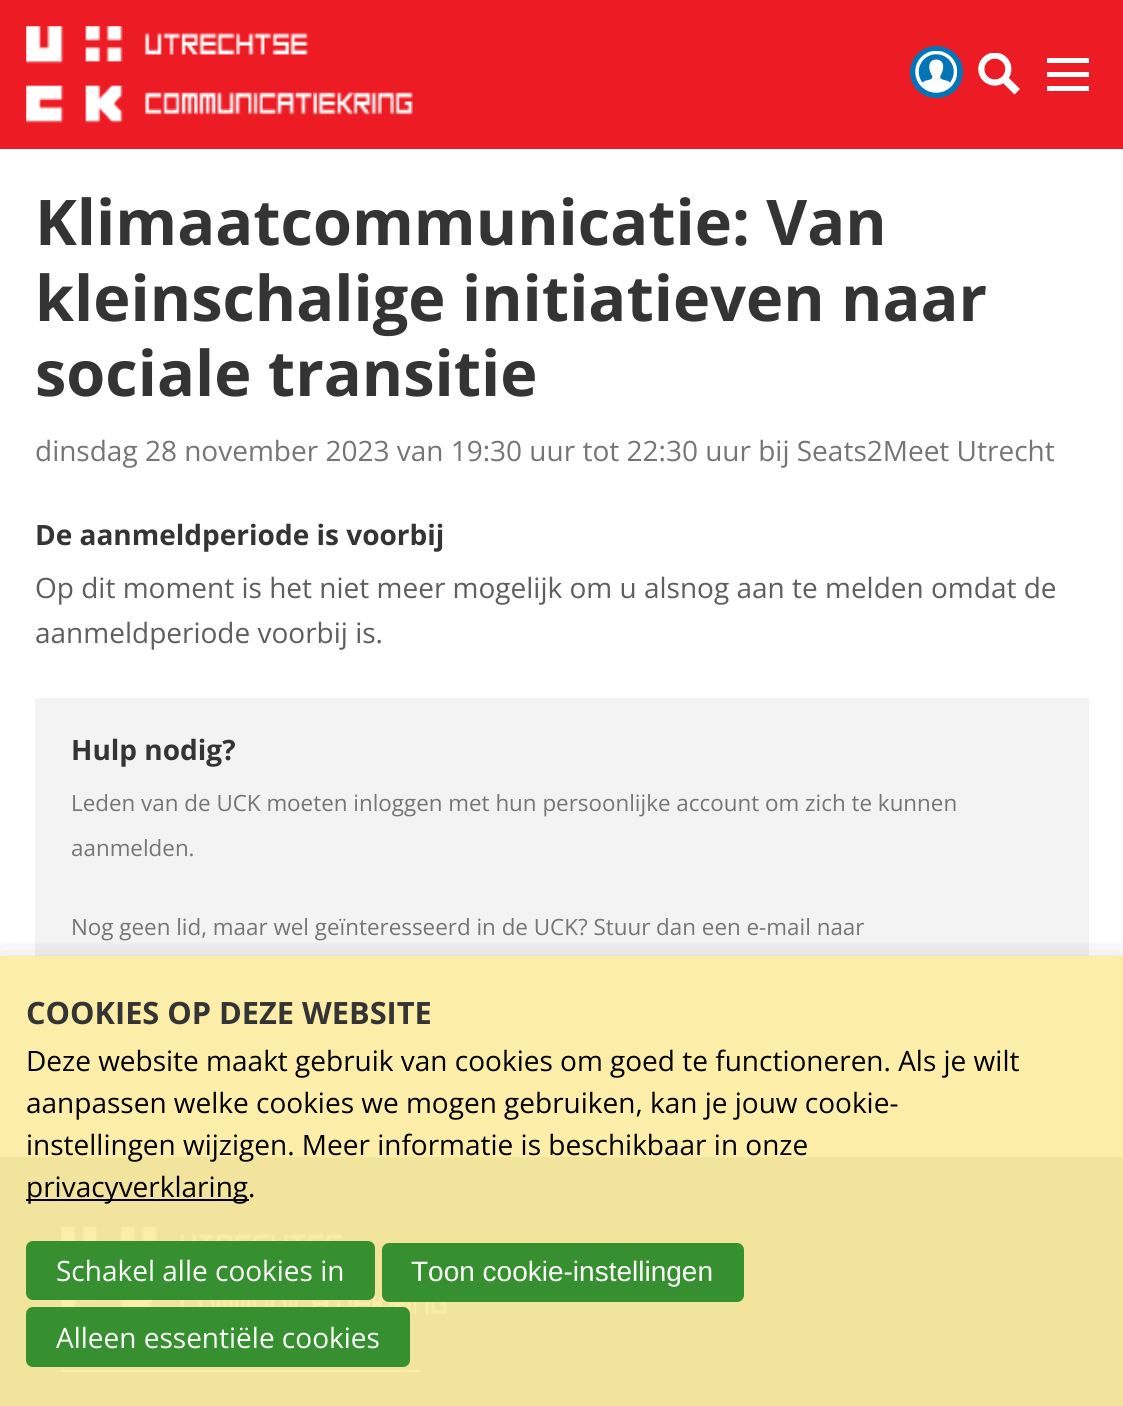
#include <cairo.h>
#include <math.h>
#include <stddef.h>

static cairo_t *ctx;

static void use_color(int r, int g, int b) {
    cairo_set_source_rgb(ctx, r / 255.0, g / 255.0, b / 255.0);
}

static void round_rect(double x, double y, double w, double h, double r) {
    cairo_new_sub_path(ctx);
    cairo_arc(ctx, x + w - r, y + h - r, r, 0, M_PI / 2);
    cairo_arc(ctx, x + r, y + h - r, r, M_PI / 2, M_PI);
    cairo_arc(ctx, x + r, y + r, r, M_PI, 1.5 * M_PI);
    cairo_arc(ctx, x + w - r, y + r, r, 1.5 * M_PI, 2 * M_PI);
    cairo_close_path(ctx);
}

static void shadow(double x, double y, double w, double h, double r, double blur, double alpha) {
    cairo_push_group_with_content(ctx, CAIRO_CONTENT_ALPHA);
    cairo_set_operator(ctx, CAIRO_OPERATOR_SOURCE);
    for (int i = 15; i >= -15 && fmin(w, h) + blur * i / 3 > 0; i -= 2) {
        double e = blur * i / 6;
        cairo_set_source_rgba(ctx, 0, 0, 0, alpha * erfc((i - 1) / 8.5) / 2);
        round_rect(x - e, y - e, w + 2 * e, h + 2 * e, fmax(0, fmin(r + e + blur * .6, fmin(w, h) / 2 + e)));
        cairo_fill(ctx);
    }
    cairo_pattern_t *soft = cairo_pop_group(ctx);
    cairo_mask(ctx, soft);
    cairo_pattern_destroy(soft);
}

static void picture(const char *path, double x, double y, double w, double h) {
    cairo_surface_t *image = cairo_image_surface_create_from_png(path);
    cairo_save(ctx);
    cairo_set_source_surface(ctx, image, x, y);
    cairo_rectangle(ctx, x, y, w, h);
    cairo_fill(ctx);
    cairo_restore(ctx);
    cairo_surface_destroy(image);
}

int main(void) {
    cairo_surface_t *surface = cairo_image_surface_create(CAIRO_FORMAT_RGB24, 1123, 1406);
    ctx = cairo_create(surface);
    cairo_font_options_t *options = cairo_font_options_create();
    cairo_font_options_set_hint_metrics(options, CAIRO_HINT_METRICS_OFF);
    cairo_font_options_set_hint_style(options, CAIRO_HINT_STYLE_NONE);
    cairo_set_font_options(ctx, options);
    cairo_set_miter_limit(ctx, 4);
    use_color(242, 227, 157);
    cairo_paint(ctx);
    use_color(237, 28, 36);
    cairo_rectangle(ctx, 0, 0, 1123, 149);
    cairo_fill(ctx);
    picture("img1.png", 26, 26, 387, 97);
    use_color(3, 116, 181);
    round_rect(910, 46, 53, 52, 26);
    cairo_fill(ctx);
    picture("img2.png", 915, 51, 42, 42);
    picture("img3.png", 978, 53, 42, 42);
    use_color(255, 255, 255);
    cairo_rectangle(ctx, 1047, 58, 42, 5);
    cairo_fill(ctx);
    cairo_rectangle(ctx, 1047, 72, 42, 5);
    cairo_fill(ctx);
    cairo_rectangle(ctx, 1047, 86, 42, 5);
    cairo_fill(ctx);
    cairo_rectangle(ctx, 0, 149, 1123, 807);
    cairo_fill(ctx);
    use_color(252, 238, 168);
    cairo_rectangle(ctx, 0, 956, 1123, 201);
    cairo_fill(ctx);
    cairo_select_font_face(ctx, "Open Sans", CAIRO_FONT_SLANT_NORMAL, CAIRO_FONT_WEIGHT_BOLD);
    cairo_set_font_size(ctx, 63);
    use_color(52, 52, 52);
    cairo_move_to(ctx, 35, 245);
    cairo_show_text(ctx, "Klimaatcommunicatie: Van");
    cairo_move_to(ctx, 35, 321);
    cairo_show_text(ctx, "kleinschalige initiatieven naar");
    cairo_move_to(ctx, 35, 396);
    cairo_show_text(ctx, "sociale transitie");
    cairo_select_font_face(ctx, "Open Sans", CAIRO_FONT_SLANT_NORMAL, CAIRO_FONT_WEIGHT_NORMAL);
    cairo_set_font_size(ctx, 28);
    use_color(117, 117, 117);
    cairo_move_to(ctx, 35, 461);
    cairo_show_text(ctx, "dinsdag 28 november 2023 van 19:30 uur tot 22:30 uur bij Seats2Meet Utrecht");
    cairo_select_font_face(ctx, "Open Sans", CAIRO_FONT_SLANT_NORMAL, CAIRO_FONT_WEIGHT_BOLD);
    use_color(52, 52, 52);
    cairo_move_to(ctx, 35, 545);
    cairo_show_text(ctx, "De aanmeldperiode is voorbij");
    cairo_select_font_face(ctx, "Open Sans", CAIRO_FONT_SLANT_NORMAL, CAIRO_FONT_WEIGHT_NORMAL);
    use_color(94, 94, 94);
    cairo_move_to(ctx, 35, 598);
    cairo_show_text(ctx, "Op dit moment is het niet meer mogelijk om u alsnog aan te melden omdat de");
    cairo_move_to(ctx, 35, 643);
    cairo_show_text(ctx, "aanmeldperiode voorbij is.");
    use_color(243, 243, 243);
    cairo_rectangle(ctx, 35, 698, 1054, 258);
    cairo_fill(ctx);
    cairo_select_font_face(ctx, "Open Sans", CAIRO_FONT_SLANT_NORMAL, CAIRO_FONT_WEIGHT_BOLD);
    use_color(52, 52, 52);
    cairo_move_to(ctx, 71, 760);
    cairo_show_text(ctx, "Hulp nodig?");
    cairo_select_font_face(ctx, "Open Sans", CAIRO_FONT_SLANT_NORMAL, CAIRO_FONT_WEIGHT_NORMAL);
    cairo_set_font_size(ctx, 22.4);
    use_color(117, 117, 117);
    cairo_move_to(ctx, 71, 811);
    cairo_show_text(ctx, "Leden van de UCK moeten inloggen met hun persoonlijke account om zich te kunnen");
    cairo_move_to(ctx, 71, 856);
    cairo_show_text(ctx, "aanmelden.");
    cairo_move_to(ctx, 71, 935);
    cairo_show_text(ctx, "Nog geen lid, maar wel geïnteresseerd in de UCK? Stuur dan een e-mail naar");
    picture("img4.png", 61, 1226, 387, 89);
    use_color(252, 238, 168);
    cairo_rectangle(ctx, 61, 1370, 359, 2);
    cairo_fill(ctx);
    cairo_save(ctx);
    cairo_rectangle(ctx, 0, 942, 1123, 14);
    cairo_clip(ctx);
    use_color(0, 0, 0);
    shadow(0, 964, 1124, 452, 0, 17.5, 0.2);
    cairo_restore(ctx);
    cairo_select_font_face(ctx, "Open Sans", CAIRO_FONT_SLANT_NORMAL, CAIRO_FONT_WEIGHT_BOLD);
    cairo_set_font_size(ctx, 30.75);
    use_color(52, 52, 52);
    cairo_move_to(ctx, 26, 1024);
    cairo_show_text(ctx, "COOKIES OP DEZE WEBSITE");
    cairo_select_font_face(ctx, "Open Sans", CAIRO_FONT_SLANT_NORMAL, CAIRO_FONT_WEIGHT_NORMAL);
    cairo_set_font_size(ctx, 28);
    use_color(0, 0, 0);
    cairo_move_to(ctx, 26, 1071);
    cairo_show_text(ctx, "Deze website maakt gebruik van cookies om goed te functioneren. Als je wilt");
    cairo_move_to(ctx, 26, 1113);
    cairo_show_text(ctx, "aanpassen welke cookies we mogen gebruiken, kan je jouw cookie-");
    cairo_move_to(ctx, 26, 1155);
    cairo_show_text(ctx, "instellingen wijzigen. Meer informatie is beschikbaar in onze");
    cairo_rectangle(ctx, 26, 1199, 223, 2);
    cairo_fill(ctx);
    cairo_move_to(ctx, 26, 1197);
    cairo_show_text(ctx, "privacyverklaring.");
    use_color(55, 144, 47);
    round_rect(27, 1242, 347, 57, 6);
    cairo_fill_preserve(ctx);
    cairo_stroke(ctx);
    use_color(255, 255, 255);
    cairo_move_to(ctx, 56, 1281);
    cairo_show_text(ctx, "Schakel alle cookies in");
    use_color(55, 144, 47);
    round_rect(383, 1244, 360, 57, 6);
    cairo_fill_preserve(ctx);
    cairo_stroke(ctx);
    cairo_select_font_face(ctx, "Liberation Sans", CAIRO_FONT_SLANT_NORMAL, CAIRO_FONT_WEIGHT_NORMAL);
    use_color(255, 255, 255);
    cairo_move_to(ctx, 411, 1281);
    cairo_show_text(ctx, "Toon cookie-instellingen");
    use_color(55, 144, 47);
    round_rect(27, 1308, 382, 58, 6);
    cairo_fill_preserve(ctx);
    cairo_stroke(ctx);
    cairo_select_font_face(ctx, "Open Sans", CAIRO_FONT_SLANT_NORMAL, CAIRO_FONT_WEIGHT_NORMAL);
    use_color(255, 255, 255);
    cairo_move_to(ctx, 56, 1348);
    cairo_show_text(ctx, "Alleen essentiële cookies");
    cairo_surface_write_to_png(surface, "result.png");
    cairo_font_options_destroy(options);
    cairo_destroy(ctx);
    cairo_surface_destroy(surface);
    return 0;
}
